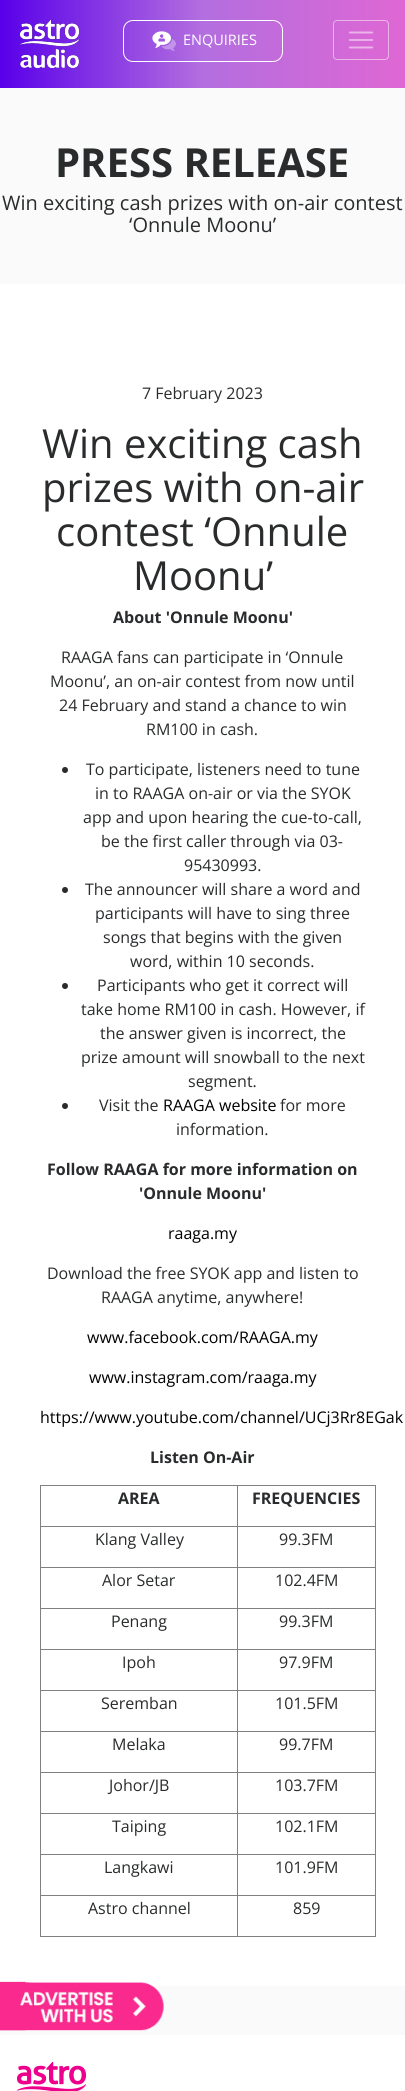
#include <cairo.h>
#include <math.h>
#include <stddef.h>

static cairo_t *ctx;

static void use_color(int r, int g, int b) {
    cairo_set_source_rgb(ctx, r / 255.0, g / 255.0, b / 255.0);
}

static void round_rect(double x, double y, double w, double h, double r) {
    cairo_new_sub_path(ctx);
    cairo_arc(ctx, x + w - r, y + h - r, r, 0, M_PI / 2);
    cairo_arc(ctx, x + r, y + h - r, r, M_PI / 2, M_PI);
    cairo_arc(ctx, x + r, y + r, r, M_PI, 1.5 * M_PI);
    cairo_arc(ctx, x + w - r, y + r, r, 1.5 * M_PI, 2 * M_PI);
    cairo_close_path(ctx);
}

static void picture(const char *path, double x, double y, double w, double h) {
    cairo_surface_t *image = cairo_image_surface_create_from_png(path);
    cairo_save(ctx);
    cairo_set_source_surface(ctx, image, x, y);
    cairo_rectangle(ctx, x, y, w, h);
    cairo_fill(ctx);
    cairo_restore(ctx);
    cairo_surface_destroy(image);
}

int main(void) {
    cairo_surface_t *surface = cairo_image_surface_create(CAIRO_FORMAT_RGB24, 405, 2091);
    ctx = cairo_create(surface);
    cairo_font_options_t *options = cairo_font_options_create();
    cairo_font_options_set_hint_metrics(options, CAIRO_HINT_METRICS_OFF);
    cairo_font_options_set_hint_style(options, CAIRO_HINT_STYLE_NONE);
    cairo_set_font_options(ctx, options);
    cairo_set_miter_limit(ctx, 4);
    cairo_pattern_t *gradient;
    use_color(250, 250, 250);
    cairo_paint(ctx);
    gradient = cairo_pattern_create_linear(0, 44, 405, 44);
    cairo_pattern_add_color_stop_rgba(gradient, 0, 0.349, 0, 0.914, 1);
    cairo_pattern_add_color_stop_rgba(gradient, 0.5, 0.702, 0.431, 0.875, 1);
    cairo_pattern_add_color_stop_rgba(gradient, 1, 0.875, 0.404, 0.831, 1);
    cairo_set_source(ctx, gradient);
    cairo_pattern_destroy(gradient);
    cairo_rectangle(ctx, 0, 0, 405, 88);
    cairo_fill(ctx);
    picture("img1.png", 20, 20, 59, 48);
    round_rect(123.5, 20.5, 159, 41, 9.5);
    use_color(255, 255, 255);
    cairo_set_line_width(ctx, 1);
    cairo_stroke(ctx);
    picture("img2.png", 152, 31, 24, 20);
    cairo_select_font_face(ctx, "Open Sans", CAIRO_FONT_SLANT_NORMAL, CAIRO_FONT_WEIGHT_NORMAL);
    cairo_set_font_size(ctx, 14.5);
    cairo_move_to(ctx, 183, 45);
    cairo_show_text(ctx, "ENQUIRIES");
    round_rect(333.5, 20.5, 55, 39, 3.5);
    cairo_set_source_rgba(ctx, 1, 1, 1, 0.5);
    cairo_stroke(ctx);
    picture("img3.png", 348, 31, 26, 18);
    cairo_select_font_face(ctx, "Open Sans", CAIRO_FONT_SLANT_NORMAL, CAIRO_FONT_WEIGHT_BOLD);
    cairo_set_font_size(ctx, 40);
    use_color(41, 43, 44);
    cairo_move_to(ctx, 55, 177);
    cairo_show_text(ctx, "PRESS RELEASE");
    cairo_select_font_face(ctx, "Open Sans", CAIRO_FONT_SLANT_NORMAL, CAIRO_FONT_WEIGHT_NORMAL);
    cairo_set_font_size(ctx, 20);
    cairo_move_to(ctx, 2, 210);
    cairo_show_text(ctx, "Win exciting cash prizes with on-air contest");
    cairo_move_to(ctx, 129, 232);
    cairo_show_text(ctx, "‘Onnule Moonu’");
    use_color(255, 255, 255);
    cairo_rectangle(ctx, 0, 284, 405, 1702);
    cairo_fill(ctx);
    cairo_set_font_size(ctx, 16);
    use_color(41, 43, 44);
    cairo_move_to(ctx, 142, 399);
    cairo_show_text(ctx, "7 February 2023");
    cairo_set_font_size(ctx, 40);
    cairo_move_to(ctx, 42, 458);
    cairo_show_text(ctx, "Win exciting cash");
    cairo_move_to(ctx, 42, 502);
    cairo_show_text(ctx, "prizes with on-air");
    cairo_move_to(ctx, 56, 546);
    cairo_show_text(ctx, "contest ‘Onnule");
    cairo_move_to(ctx, 133, 590);
    cairo_show_text(ctx, "Moonu’");
    cairo_select_font_face(ctx, "Open Sans", CAIRO_FONT_SLANT_NORMAL, CAIRO_FONT_WEIGHT_BOLD);
    cairo_set_font_size(ctx, 16);
    cairo_move_to(ctx, 113, 623);
    cairo_show_text(ctx, "About 'Onnule Moonu'");
    cairo_select_font_face(ctx, "Open Sans", CAIRO_FONT_SLANT_NORMAL, CAIRO_FONT_WEIGHT_NORMAL);
    cairo_move_to(ctx, 61, 663);
    cairo_show_text(ctx, "RAAGA fans can participate in ‘Onnule");
    cairo_move_to(ctx, 50, 687);
    cairo_show_text(ctx, "Moonu’, an on-air contest from now until");
    cairo_move_to(ctx, 59, 711);
    cairo_show_text(ctx, "24 February and stand a chance to win");
    cairo_move_to(ctx, 146, 735);
    cairo_show_text(ctx, "RM100 in cash.");
    cairo_new_path(ctx);
    cairo_arc(ctx, 65, 770, 3, 0, 2 * M_PI);
    cairo_fill(ctx);
    cairo_move_to(ctx, 86, 775);
    cairo_show_text(ctx, "To participate, listeners need to tune");
    cairo_move_to(ctx, 95, 799);
    cairo_show_text(ctx, "in to RAAGA on-air or via the SYOK");
    cairo_move_to(ctx, 83, 823);
    cairo_show_text(ctx, "app and upon hearing the cue-to-call,");
    cairo_move_to(ctx, 101, 847);
    cairo_show_text(ctx, "be the first caller through via 03-");
    cairo_move_to(ctx, 184, 871);
    cairo_show_text(ctx, "95430993.");
    cairo_new_path(ctx);
    cairo_arc(ctx, 65, 890, 3, 0, 2 * M_PI);
    cairo_fill(ctx);
    cairo_move_to(ctx, 85, 895);
    cairo_show_text(ctx, "The announcer will share a word and");
    cairo_move_to(ctx, 95, 919);
    cairo_show_text(ctx, "participants will have to sing three");
    cairo_move_to(ctx, 103, 943);
    cairo_show_text(ctx, "songs that begins with the given");
    cairo_move_to(ctx, 130, 967);
    cairo_show_text(ctx, "word, within 10 seconds.");
    cairo_new_path(ctx);
    cairo_arc(ctx, 65, 986, 3, 0, 2 * M_PI);
    cairo_fill(ctx);
    cairo_move_to(ctx, 97, 991);
    cairo_show_text(ctx, "Participants who get it correct will");
    cairo_move_to(ctx, 81, 1015);
    cairo_show_text(ctx, "take home RM100 in cash. However, if");
    cairo_move_to(ctx, 100, 1039);
    cairo_show_text(ctx, "the answer given is incorrect, the");
    cairo_move_to(ctx, 81, 1063);
    cairo_show_text(ctx, "prize amount will snowball to the next");
    cairo_move_to(ctx, 188, 1087);
    cairo_show_text(ctx, "segment.");
    cairo_new_path(ctx);
    cairo_arc(ctx, 65, 1106, 3, 0, 2 * M_PI);
    cairo_fill(ctx);
    cairo_move_to(ctx, 99, 1111);
    cairo_show_text(ctx, "Visit the");
    use_color(0, 0, 0);
    cairo_move_to(ctx, 163, 1111);
    cairo_show_text(ctx, "RAAGA website");
    use_color(41, 43, 44);
    cairo_move_to(ctx, 280, 1111);
    cairo_show_text(ctx, "for more");
    cairo_move_to(ctx, 176, 1135);
    cairo_show_text(ctx, "information.");
    cairo_select_font_face(ctx, "Open Sans", CAIRO_FONT_SLANT_NORMAL, CAIRO_FONT_WEIGHT_BOLD);
    cairo_move_to(ctx, 47, 1175);
    cairo_show_text(ctx, "Follow RAAGA for more information on");
    cairo_move_to(ctx, 139, 1199);
    cairo_show_text(ctx, "'Onnule Moonu'");
    cairo_select_font_face(ctx, "Open Sans", CAIRO_FONT_SLANT_NORMAL, CAIRO_FONT_WEIGHT_NORMAL);
    use_color(0, 0, 0);
    cairo_move_to(ctx, 168, 1239);
    cairo_show_text(ctx, "raaga.my");
    use_color(41, 43, 44);
    cairo_move_to(ctx, 47, 1279);
    cairo_show_text(ctx, "Download the free SYOK app and listen to");
    cairo_move_to(ctx, 101, 1303);
    cairo_show_text(ctx, "RAAGA anytime, anywhere!");
    use_color(0, 0, 0);
    cairo_move_to(ctx, 87, 1343);
    cairo_show_text(ctx, "www.facebook.com/RAAGA.my");
    cairo_move_to(ctx, 89, 1383);
    cairo_show_text(ctx, "www.instagram.com/raaga.my");
    cairo_move_to(ctx, 40, 1423);
    cairo_show_text(ctx, "https://www.youtube.com/channel/UCj3Rr8EGak");
    cairo_select_font_face(ctx, "Open Sans", CAIRO_FONT_SLANT_NORMAL, CAIRO_FONT_WEIGHT_BOLD);
    use_color(41, 43, 44);
    cairo_move_to(ctx, 150, 1463);
    cairo_show_text(ctx, "Listen On-Air");
    use_color(128, 128, 128);
    cairo_rectangle(ctx, 40, 1485, 336, 1);
    cairo_fill(ctx);
    cairo_rectangle(ctx, 375, 1485, 1, 452);
    cairo_fill(ctx);
    cairo_rectangle(ctx, 40, 1936, 336, 1);
    cairo_fill(ctx);
    cairo_rectangle(ctx, 40, 1485, 1, 452);
    cairo_fill(ctx);
    use_color(41, 43, 44);
    cairo_move_to(ctx, 118, 1504);
    cairo_show_text(ctx, "AREA");
    use_color(128, 128, 128);
    cairo_rectangle(ctx, 237, 1526, 139, 1);
    cairo_fill(ctx);
    cairo_rectangle(ctx, 237, 1567, 139, 1);
    cairo_fill(ctx);
    cairo_rectangle(ctx, 237, 1608, 139, 1);
    cairo_fill(ctx);
    cairo_rectangle(ctx, 237, 1649, 139, 1);
    cairo_fill(ctx);
    cairo_rectangle(ctx, 237, 1690, 139, 1);
    cairo_fill(ctx);
    cairo_rectangle(ctx, 237, 1731, 139, 1);
    cairo_fill(ctx);
    cairo_rectangle(ctx, 237, 1772, 139, 1);
    cairo_fill(ctx);
    cairo_rectangle(ctx, 237, 1813, 139, 1);
    cairo_fill(ctx);
    cairo_rectangle(ctx, 237, 1854, 139, 1);
    cairo_fill(ctx);
    cairo_rectangle(ctx, 237, 1895, 139, 1);
    cairo_fill(ctx);
    cairo_rectangle(ctx, 237, 1895, 1, 42);
    cairo_fill(ctx);
    cairo_rectangle(ctx, 40, 1895, 198, 1);
    cairo_fill(ctx);
    cairo_rectangle(ctx, 237, 1854, 1, 42);
    cairo_fill(ctx);
    cairo_rectangle(ctx, 40, 1854, 198, 1);
    cairo_fill(ctx);
    cairo_rectangle(ctx, 237, 1813, 1, 42);
    cairo_fill(ctx);
    cairo_rectangle(ctx, 40, 1813, 198, 1);
    cairo_fill(ctx);
    cairo_rectangle(ctx, 237, 1772, 1, 42);
    cairo_fill(ctx);
    cairo_rectangle(ctx, 40, 1772, 198, 1);
    cairo_fill(ctx);
    cairo_rectangle(ctx, 237, 1731, 1, 42);
    cairo_fill(ctx);
    cairo_rectangle(ctx, 40, 1731, 198, 1);
    cairo_fill(ctx);
    cairo_rectangle(ctx, 237, 1690, 1, 42);
    cairo_fill(ctx);
    cairo_rectangle(ctx, 40, 1690, 198, 1);
    cairo_fill(ctx);
    cairo_rectangle(ctx, 237, 1649, 1, 42);
    cairo_fill(ctx);
    cairo_rectangle(ctx, 40, 1649, 198, 1);
    cairo_fill(ctx);
    cairo_rectangle(ctx, 237, 1608, 1, 42);
    cairo_fill(ctx);
    cairo_rectangle(ctx, 40, 1608, 198, 1);
    cairo_fill(ctx);
    cairo_rectangle(ctx, 237, 1567, 1, 42);
    cairo_fill(ctx);
    cairo_rectangle(ctx, 40, 1567, 198, 1);
    cairo_fill(ctx);
    cairo_rectangle(ctx, 237, 1526, 1, 42);
    cairo_fill(ctx);
    cairo_rectangle(ctx, 40, 1526, 198, 1);
    cairo_fill(ctx);
    cairo_rectangle(ctx, 237, 1485, 1, 42);
    cairo_fill(ctx);
    use_color(41, 43, 44);
    cairo_move_to(ctx, 252, 1504);
    cairo_show_text(ctx, "FREQUENCIES");
    cairo_select_font_face(ctx, "Open Sans", CAIRO_FONT_SLANT_NORMAL, CAIRO_FONT_WEIGHT_NORMAL);
    cairo_move_to(ctx, 95, 1545);
    cairo_show_text(ctx, "Klang Valley");
    cairo_move_to(ctx, 279, 1545);
    cairo_show_text(ctx, "99.3FM");
    cairo_move_to(ctx, 102, 1586);
    cairo_show_text(ctx, "Alor Setar");
    cairo_move_to(ctx, 275, 1586);
    cairo_show_text(ctx, "102.4FM");
    cairo_move_to(ctx, 111, 1627);
    cairo_show_text(ctx, "Penang");
    cairo_move_to(ctx, 279, 1627);
    cairo_show_text(ctx, "99.3FM");
    cairo_move_to(ctx, 122, 1668);
    cairo_show_text(ctx, "Ipoh");
    cairo_move_to(ctx, 279, 1668);
    cairo_show_text(ctx, "97.9FM");
    cairo_move_to(ctx, 101, 1709);
    cairo_show_text(ctx, "Seremban");
    cairo_move_to(ctx, 275, 1709);
    cairo_show_text(ctx, "101.5FM");
    cairo_move_to(ctx, 112, 1750);
    cairo_show_text(ctx, "Melaka");
    cairo_move_to(ctx, 279, 1750);
    cairo_show_text(ctx, "99.7FM");
    cairo_move_to(ctx, 109, 1791);
    cairo_show_text(ctx, "Johor/JB");
    cairo_move_to(ctx, 275, 1791);
    cairo_show_text(ctx, "103.7FM");
    cairo_move_to(ctx, 112, 1832);
    cairo_show_text(ctx, "Taiping");
    cairo_move_to(ctx, 275, 1832);
    cairo_show_text(ctx, "102.1FM");
    cairo_move_to(ctx, 104, 1873);
    cairo_show_text(ctx, "Langkawi");
    cairo_move_to(ctx, 275, 1873);
    cairo_show_text(ctx, "101.9FM");
    cairo_move_to(ctx, 88, 1914);
    cairo_show_text(ctx, "Astro channel");
    cairo_move_to(ctx, 293, 1914);
    cairo_show_text(ctx, "859");
    picture("img4.png", 0, 1981, 30, 50);
    picture("img5.png", 0, 1982, 164, 49);
    use_color(255, 255, 255);
    cairo_rectangle(ctx, 0, 2035, 405, 56);
    cairo_fill(ctx);
    picture("img6.png", 17, 2062, 69, 29);
    cairo_surface_write_to_png(surface, "result.png");
    cairo_font_options_destroy(options);
    cairo_destroy(ctx);
    cairo_surface_destroy(surface);
    return 0;
}
